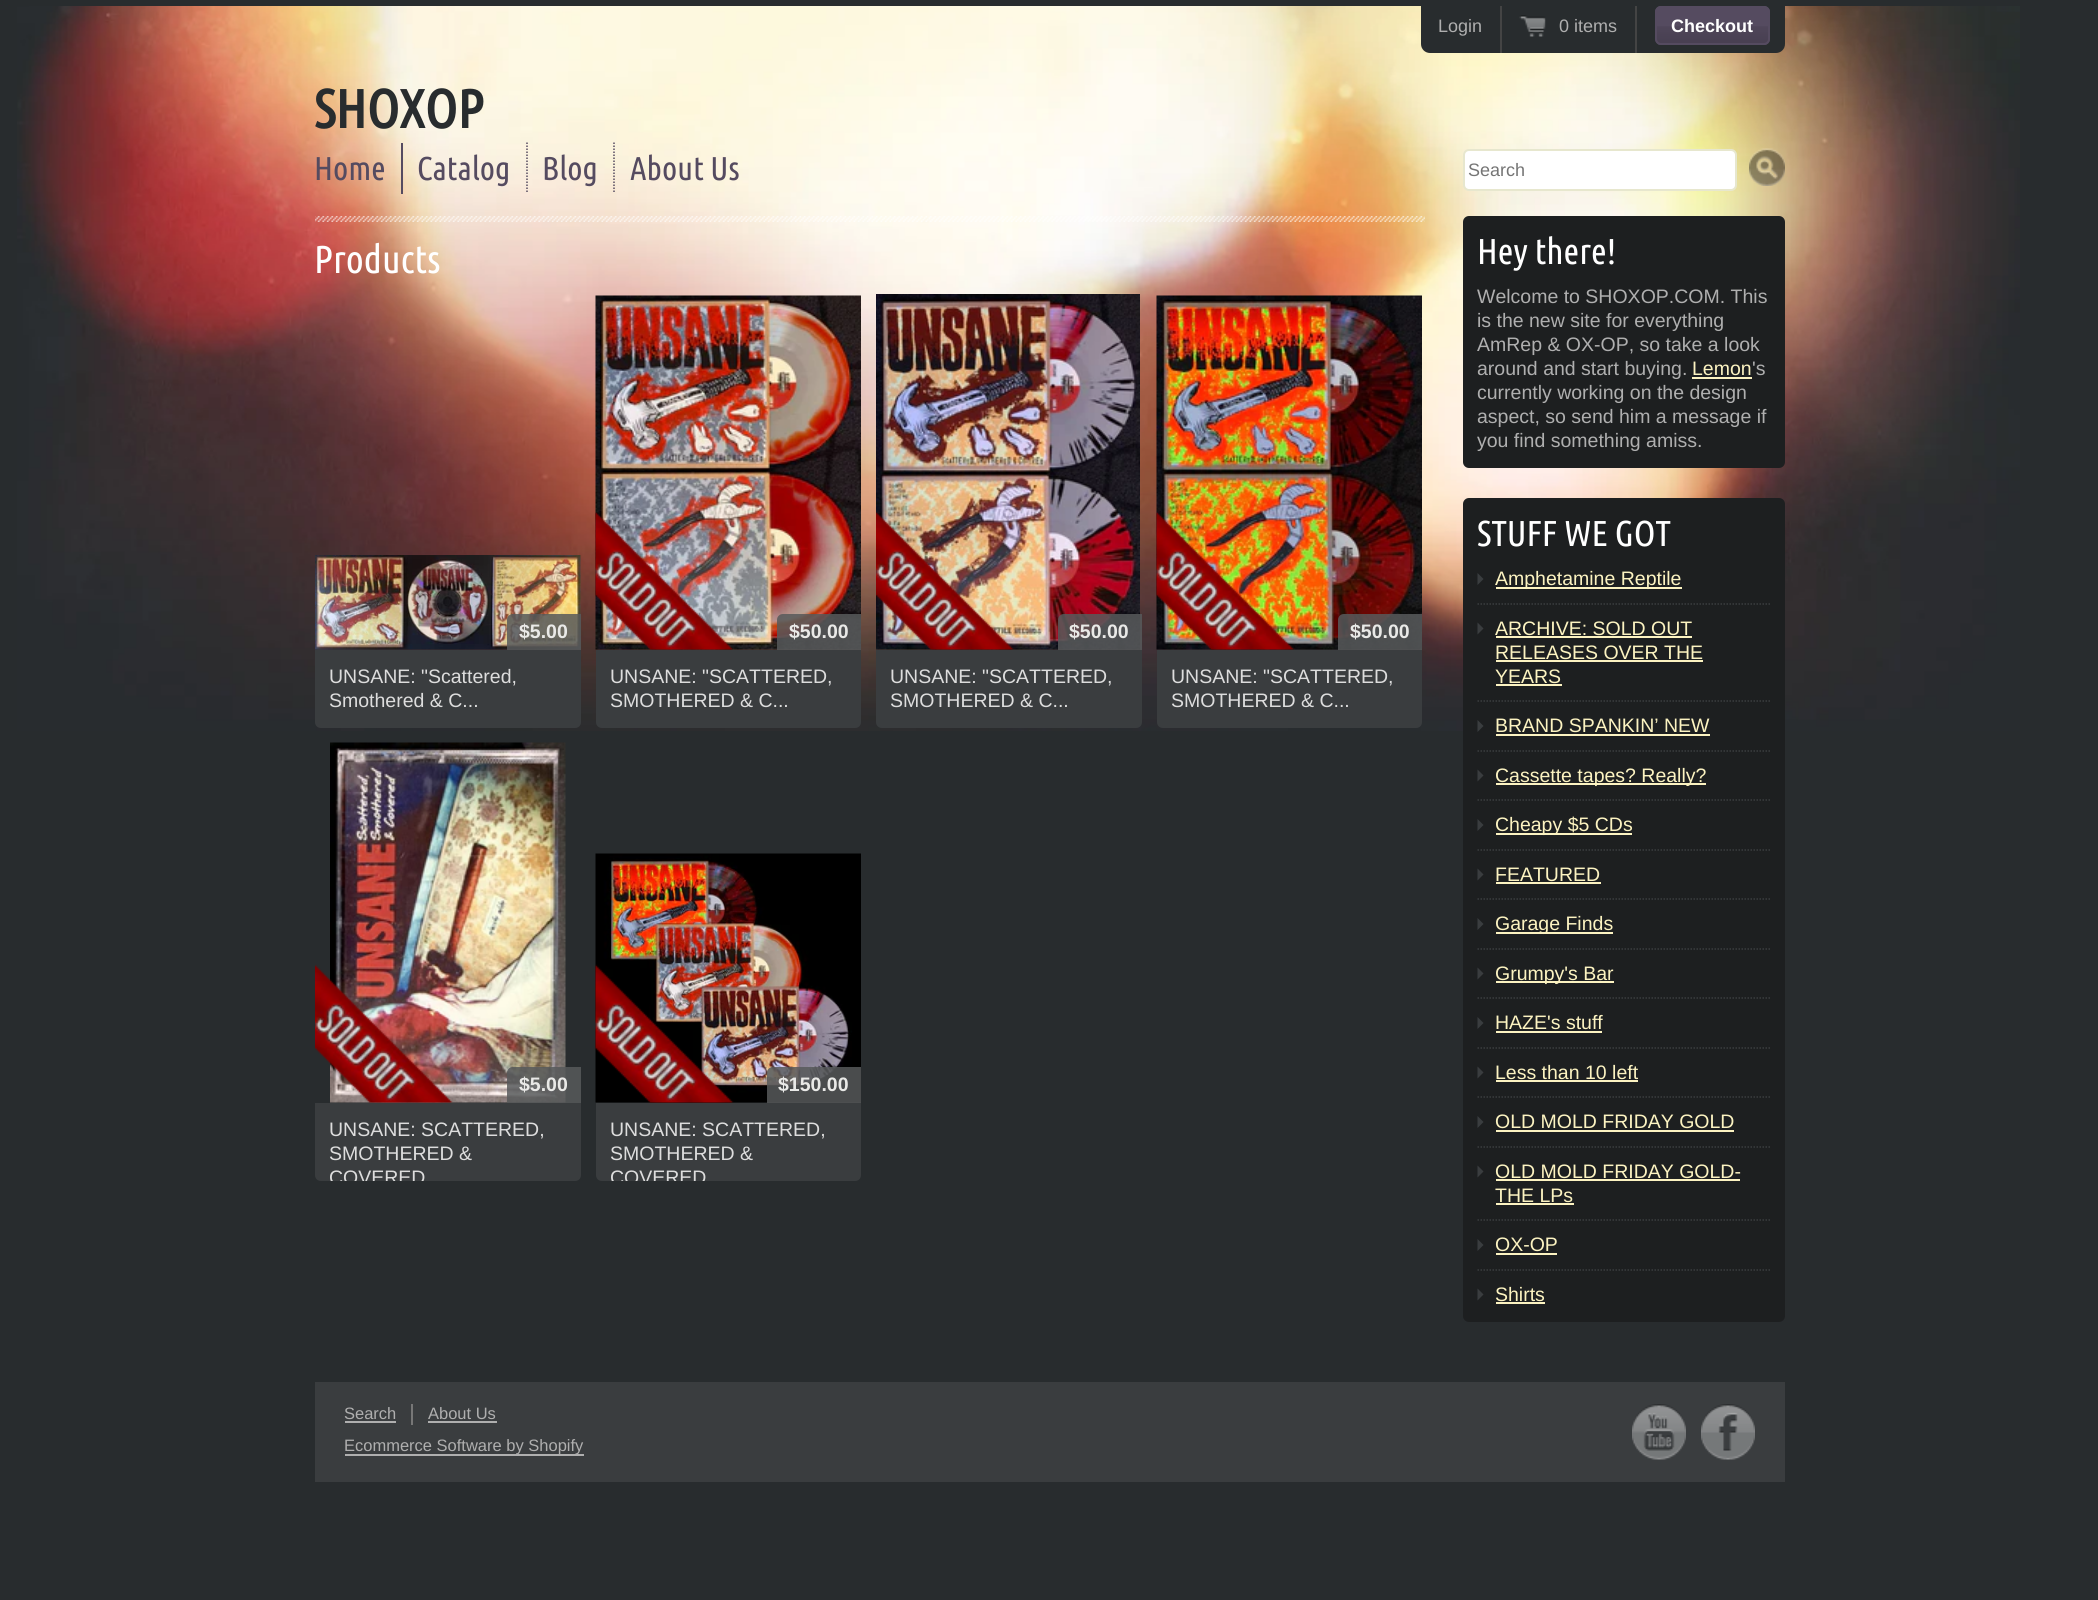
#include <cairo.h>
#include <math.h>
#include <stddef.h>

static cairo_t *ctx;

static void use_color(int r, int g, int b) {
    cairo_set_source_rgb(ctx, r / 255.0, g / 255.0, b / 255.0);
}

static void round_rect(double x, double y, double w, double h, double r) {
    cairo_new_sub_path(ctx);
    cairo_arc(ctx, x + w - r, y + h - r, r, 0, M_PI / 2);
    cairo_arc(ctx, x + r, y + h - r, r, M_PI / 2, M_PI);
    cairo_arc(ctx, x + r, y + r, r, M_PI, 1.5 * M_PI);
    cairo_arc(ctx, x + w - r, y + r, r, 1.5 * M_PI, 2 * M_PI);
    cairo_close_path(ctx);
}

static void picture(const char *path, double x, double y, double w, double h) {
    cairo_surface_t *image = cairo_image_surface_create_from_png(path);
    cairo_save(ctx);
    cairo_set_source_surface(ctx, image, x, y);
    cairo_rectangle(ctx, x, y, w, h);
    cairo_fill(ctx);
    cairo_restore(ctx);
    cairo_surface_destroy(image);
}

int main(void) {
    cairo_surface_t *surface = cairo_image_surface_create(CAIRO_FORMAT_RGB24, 2098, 1600);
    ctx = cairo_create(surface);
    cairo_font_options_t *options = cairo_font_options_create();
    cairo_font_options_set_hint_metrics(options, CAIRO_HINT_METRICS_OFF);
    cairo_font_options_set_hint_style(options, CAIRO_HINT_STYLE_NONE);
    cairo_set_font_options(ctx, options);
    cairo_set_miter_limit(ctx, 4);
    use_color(40, 44, 46);
    cairo_paint(ctx);
    picture("img1.png", 17, 6, 2003, 725);
    use_color(40, 44, 46);
    cairo_new_path(ctx);
    cairo_move_to(ctx, 1421, 6);
    cairo_line_to(ctx, 1785, 6);
    cairo_line_to(ctx, 1785, 44);
    cairo_curve_to(ctx, 1785, 49, 1781, 53, 1776, 53);
    cairo_line_to(ctx, 1430, 53);
    cairo_curve_to(ctx, 1425, 53, 1421, 49, 1421, 44);
    cairo_close_path(ctx);
    cairo_fill(ctx);
    use_color(68, 68, 68);
    cairo_rectangle(ctx, 1500, 6, 2, 47);
    cairo_fill(ctx);
    cairo_select_font_face(ctx, "Liberation Sans", CAIRO_FONT_SLANT_NORMAL, CAIRO_FONT_WEIGHT_NORMAL);
    cairo_set_font_size(ctx, 18);
    use_color(175, 175, 175);
    cairo_move_to(ctx, 1438, 32);
    cairo_show_text(ctx, "Login");
    use_color(68, 68, 68);
    cairo_rectangle(ctx, 1635, 6, 2, 47);
    cairo_fill(ctx);
    picture("img2.png", 1519, 15, 27, 22);
    use_color(175, 175, 175);
    cairo_move_to(ctx, 1559, 32);
    cairo_show_text(ctx, "0 items");
    use_color(85, 75, 96);
    round_rect(1655, 6, 115, 39, 6);
    cairo_fill(ctx);
    picture("img3.png", 1655, 26, 115, 18);
    round_rect(1656, 7, 113, 37, 5);
    cairo_stroke(ctx);
    cairo_select_font_face(ctx, "Liberation Sans", CAIRO_FONT_SLANT_NORMAL, CAIRO_FONT_WEIGHT_BOLD);
    use_color(255, 255, 255);
    cairo_move_to(ctx, 1671, 32);
    cairo_show_text(ctx, "Checkout");
    cairo_select_font_face(ctx, "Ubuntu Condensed", CAIRO_FONT_SLANT_NORMAL, CAIRO_FONT_WEIGHT_BOLD);
    cairo_set_font_size(ctx, 54);
    use_color(40, 44, 46);
    cairo_move_to(ctx, 314, 128);
    cairo_show_text(ctx, "SHOXOP");
    use_color(85, 75, 96);
    cairo_rectangle(ctx, 401, 143, 2, 51);
    cairo_fill(ctx);
    cairo_select_font_face(ctx, "Ubuntu Condensed", CAIRO_FONT_SLANT_NORMAL, CAIRO_FONT_WEIGHT_NORMAL);
    cairo_set_font_size(ctx, 33);
    cairo_move_to(ctx, 314, 180);
    cairo_show_text(ctx, "Home");
    cairo_new_path(ctx);
    cairo_move_to(ctx, 527, 142.5);
    cairo_line_to(ctx, 527, 193.5);
    cairo_set_line_width(ctx, 1.5);
    cairo_set_dash(ctx, (double[]){1.5, 1.5}, 2, 0);
    cairo_stroke(ctx);
    cairo_move_to(ctx, 417, 180);
    cairo_show_text(ctx, "Catalog");
    cairo_new_path(ctx);
    cairo_move_to(ctx, 614, 142.5);
    cairo_line_to(ctx, 614, 193.5);
    cairo_stroke(ctx);
    cairo_move_to(ctx, 542, 180);
    cairo_show_text(ctx, "Blog");
    cairo_move_to(ctx, 630, 180);
    cairo_show_text(ctx, "About Us");
    use_color(255, 255, 255);
    round_rect(1464, 150, 272, 40, 5);
    cairo_fill_preserve(ctx);
    use_color(231, 231, 206);
    cairo_set_line_width(ctx, 2);
    cairo_set_dash(ctx, NULL, 0, 0);
    cairo_stroke(ctx);
    cairo_select_font_face(ctx, "Liberation Sans", CAIRO_FONT_SLANT_NORMAL, CAIRO_FONT_WEIGHT_NORMAL);
    cairo_set_font_size(ctx, 18);
    use_color(117, 117, 117);
    cairo_move_to(ctx, 1468, 176);
    cairo_show_text(ctx, "Search");
    picture("img4.png", 1749, 148, 36, 38);
    picture("img5.png", 315, 216, 1110, 6);
    cairo_select_font_face(ctx, "Ubuntu Condensed", CAIRO_FONT_SLANT_NORMAL, CAIRO_FONT_WEIGHT_NORMAL);
    cairo_set_font_size(ctx, 39);
    use_color(255, 255, 255);
    cairo_move_to(ctx, 314, 273);
    cairo_show_text(ctx, "Products");
    picture("img6.png", 315, 555, 266, 95);
    cairo_set_source_rgba(ctx, 0.341, 0.353, 0.357, 0.85);
    cairo_new_path(ctx);
    cairo_move_to(ctx, 513, 614);
    cairo_line_to(ctx, 581, 614);
    cairo_line_to(ctx, 581, 650);
    cairo_line_to(ctx, 507, 650);
    cairo_line_to(ctx, 507, 620);
    cairo_curve_to(ctx, 507, 616.5, 509.5, 614, 513, 614);
    cairo_close_path(ctx);
    cairo_fill(ctx);
    cairo_select_font_face(ctx, "Liberation Sans", CAIRO_FONT_SLANT_NORMAL, CAIRO_FONT_WEIGHT_BOLD);
    cairo_set_font_size(ctx, 19.5);
    use_color(233, 233, 231);
    cairo_move_to(ctx, 519, 638);
    cairo_show_text(ctx, "$5.00");
    use_color(58, 61, 63);
    cairo_new_path(ctx);
    cairo_move_to(ctx, 315, 650);
    cairo_line_to(ctx, 581, 650);
    cairo_line_to(ctx, 581, 722);
    cairo_curve_to(ctx, 581, 725.5, 578.5, 728, 575, 728);
    cairo_line_to(ctx, 321, 728);
    cairo_curve_to(ctx, 317.5, 728, 315, 725.5, 315, 722);
    cairo_close_path(ctx);
    cairo_fill(ctx);
    cairo_select_font_face(ctx, "Liberation Sans", CAIRO_FONT_SLANT_NORMAL, CAIRO_FONT_WEIGHT_NORMAL);
    use_color(221, 221, 221);
    cairo_move_to(ctx, 329, 683);
    cairo_show_text(ctx, "UNSANE: \"Scattered,");
    cairo_move_to(ctx, 329, 707);
    cairo_show_text(ctx, "Smothered & C...");
    picture("img8.png", 595, 295, 266, 355);
    picture("img7.png", 595, 511, 139, 139);
    cairo_set_source_rgba(ctx, 0.341, 0.353, 0.357, 0.85);
    cairo_new_path(ctx);
    cairo_move_to(ctx, 783, 614);
    cairo_line_to(ctx, 861, 614);
    cairo_line_to(ctx, 861, 650);
    cairo_line_to(ctx, 777, 650);
    cairo_line_to(ctx, 777, 620);
    cairo_curve_to(ctx, 777, 616.5, 779.5, 614, 783, 614);
    cairo_close_path(ctx);
    cairo_fill(ctx);
    cairo_select_font_face(ctx, "Liberation Sans", CAIRO_FONT_SLANT_NORMAL, CAIRO_FONT_WEIGHT_BOLD);
    use_color(233, 233, 231);
    cairo_move_to(ctx, 789, 638);
    cairo_show_text(ctx, "$50.00");
    use_color(58, 61, 63);
    cairo_new_path(ctx);
    cairo_move_to(ctx, 596, 650);
    cairo_line_to(ctx, 861, 650);
    cairo_line_to(ctx, 861, 722);
    cairo_curve_to(ctx, 861, 725.5, 858.5, 728, 855, 728);
    cairo_line_to(ctx, 602, 728);
    cairo_curve_to(ctx, 598.5, 728, 596, 725.5, 596, 722);
    cairo_close_path(ctx);
    cairo_fill(ctx);
    cairo_select_font_face(ctx, "Liberation Sans", CAIRO_FONT_SLANT_NORMAL, CAIRO_FONT_WEIGHT_NORMAL);
    use_color(221, 221, 221);
    cairo_move_to(ctx, 610, 683);
    cairo_show_text(ctx, "UNSANE: \"SCATTERED,");
    cairo_move_to(ctx, 610, 707);
    cairo_show_text(ctx, "SMOTHERED & C...");
    picture("img10.png", 876, 294, 264, 356);
    picture("img9.png", 876, 511, 138, 139);
    cairo_set_source_rgba(ctx, 0.341, 0.353, 0.357, 0.85);
    cairo_new_path(ctx);
    cairo_move_to(ctx, 1064, 614);
    cairo_line_to(ctx, 1142, 614);
    cairo_line_to(ctx, 1142, 650);
    cairo_line_to(ctx, 1058, 650);
    cairo_line_to(ctx, 1058, 620);
    cairo_curve_to(ctx, 1058, 616.5, 1060.5, 614, 1064, 614);
    cairo_close_path(ctx);
    cairo_fill(ctx);
    cairo_select_font_face(ctx, "Liberation Sans", CAIRO_FONT_SLANT_NORMAL, CAIRO_FONT_WEIGHT_BOLD);
    use_color(233, 233, 231);
    cairo_move_to(ctx, 1069, 638);
    cairo_show_text(ctx, "$50.00");
    use_color(58, 61, 63);
    cairo_new_path(ctx);
    cairo_move_to(ctx, 876, 650);
    cairo_line_to(ctx, 1142, 650);
    cairo_line_to(ctx, 1142, 722);
    cairo_curve_to(ctx, 1142, 725.5, 1139.5, 728, 1136, 728);
    cairo_line_to(ctx, 882, 728);
    cairo_curve_to(ctx, 878.5, 728, 876, 725.5, 876, 722);
    cairo_close_path(ctx);
    cairo_fill(ctx);
    cairo_select_font_face(ctx, "Liberation Sans", CAIRO_FONT_SLANT_NORMAL, CAIRO_FONT_WEIGHT_NORMAL);
    use_color(221, 221, 221);
    cairo_move_to(ctx, 890, 683);
    cairo_show_text(ctx, "UNSANE: \"SCATTERED,");
    cairo_move_to(ctx, 890, 707);
    cairo_show_text(ctx, "SMOTHERED & C...");
    picture("img12.png", 1156, 295, 266, 355);
    picture("img11.png", 1156, 511, 139, 139);
    cairo_set_source_rgba(ctx, 0.341, 0.353, 0.357, 0.85);
    cairo_new_path(ctx);
    cairo_move_to(ctx, 1344, 614);
    cairo_line_to(ctx, 1422, 614);
    cairo_line_to(ctx, 1422, 650);
    cairo_line_to(ctx, 1338, 650);
    cairo_line_to(ctx, 1338, 620);
    cairo_curve_to(ctx, 1338, 616.5, 1340.5, 614, 1344, 614);
    cairo_close_path(ctx);
    cairo_fill(ctx);
    cairo_select_font_face(ctx, "Liberation Sans", CAIRO_FONT_SLANT_NORMAL, CAIRO_FONT_WEIGHT_BOLD);
    use_color(233, 233, 231);
    cairo_move_to(ctx, 1350, 638);
    cairo_show_text(ctx, "$50.00");
    use_color(58, 61, 63);
    cairo_new_path(ctx);
    cairo_move_to(ctx, 1157, 650);
    cairo_line_to(ctx, 1422, 650);
    cairo_line_to(ctx, 1422, 722);
    cairo_curve_to(ctx, 1422, 725.5, 1419.5, 728, 1416, 728);
    cairo_line_to(ctx, 1163, 728);
    cairo_curve_to(ctx, 1159.5, 728, 1157, 725.5, 1157, 722);
    cairo_close_path(ctx);
    cairo_fill(ctx);
    cairo_select_font_face(ctx, "Liberation Sans", CAIRO_FONT_SLANT_NORMAL, CAIRO_FONT_WEIGHT_NORMAL);
    use_color(221, 221, 221);
    cairo_move_to(ctx, 1171, 683);
    cairo_show_text(ctx, "UNSANE: \"SCATTERED,");
    cairo_move_to(ctx, 1171, 707);
    cairo_show_text(ctx, "SMOTHERED & C...");
    picture("img14.png", 330, 742, 236, 361);
    picture("img13.png", 315, 964, 138, 139);
    cairo_set_source_rgba(ctx, 0.341, 0.353, 0.357, 0.85);
    cairo_new_path(ctx);
    cairo_move_to(ctx, 513, 1067);
    cairo_line_to(ctx, 581, 1067);
    cairo_line_to(ctx, 581, 1103);
    cairo_line_to(ctx, 507, 1103);
    cairo_line_to(ctx, 507, 1073);
    cairo_curve_to(ctx, 507, 1069.5, 509.5, 1067, 513, 1067);
    cairo_close_path(ctx);
    cairo_fill(ctx);
    cairo_select_font_face(ctx, "Liberation Sans", CAIRO_FONT_SLANT_NORMAL, CAIRO_FONT_WEIGHT_BOLD);
    use_color(233, 233, 231);
    cairo_move_to(ctx, 519, 1091);
    cairo_show_text(ctx, "$5.00");
    use_color(58, 61, 63);
    cairo_new_path(ctx);
    cairo_move_to(ctx, 315, 1103);
    cairo_line_to(ctx, 581, 1103);
    cairo_line_to(ctx, 581, 1175);
    cairo_curve_to(ctx, 581, 1178.5, 578.5, 1181, 575, 1181);
    cairo_line_to(ctx, 321, 1181);
    cairo_curve_to(ctx, 317.5, 1181, 315, 1178.5, 315, 1175);
    cairo_close_path(ctx);
    cairo_fill(ctx);
    cairo_select_font_face(ctx, "Liberation Sans", CAIRO_FONT_SLANT_NORMAL, CAIRO_FONT_WEIGHT_NORMAL);
    use_color(221, 221, 221);
    cairo_move_to(ctx, 329, 1136);
    cairo_show_text(ctx, "UNSANE: SCATTERED,");
    cairo_move_to(ctx, 329, 1160);
    cairo_show_text(ctx, "SMOTHERED &");
    cairo_save(ctx);
    cairo_new_path(ctx);
    cairo_move_to(ctx, 315, 1103);
    cairo_line_to(ctx, 581, 1103);
    cairo_line_to(ctx, 581, 1175);
    cairo_curve_to(ctx, 581, 1178.5, 578.5, 1181, 575, 1181);
    cairo_line_to(ctx, 321, 1181);
    cairo_curve_to(ctx, 317.5, 1181, 315, 1178.5, 315, 1175);
    cairo_close_path(ctx);
    cairo_clip(ctx);
    cairo_move_to(ctx, 329, 1184);
    cairo_show_text(ctx, "COVERED");
    cairo_restore(ctx);
    picture("img16.png", 595, 853, 266, 250);
    picture("img15.png", 595, 964, 139, 139);
    cairo_set_source_rgba(ctx, 0.341, 0.353, 0.357, 0.85);
    cairo_new_path(ctx);
    cairo_move_to(ctx, 773, 1067);
    cairo_line_to(ctx, 861, 1067);
    cairo_line_to(ctx, 861, 1103);
    cairo_line_to(ctx, 767, 1103);
    cairo_line_to(ctx, 767, 1073);
    cairo_curve_to(ctx, 767, 1069.5, 769.5, 1067, 773, 1067);
    cairo_close_path(ctx);
    cairo_fill(ctx);
    cairo_select_font_face(ctx, "Liberation Sans", CAIRO_FONT_SLANT_NORMAL, CAIRO_FONT_WEIGHT_BOLD);
    use_color(233, 233, 231);
    cairo_move_to(ctx, 778, 1091);
    cairo_show_text(ctx, "$150.00");
    use_color(58, 61, 63);
    cairo_new_path(ctx);
    cairo_move_to(ctx, 596, 1103);
    cairo_line_to(ctx, 861, 1103);
    cairo_line_to(ctx, 861, 1175);
    cairo_curve_to(ctx, 861, 1178.5, 858.5, 1181, 855, 1181);
    cairo_line_to(ctx, 602, 1181);
    cairo_curve_to(ctx, 598.5, 1181, 596, 1178.5, 596, 1175);
    cairo_close_path(ctx);
    cairo_fill(ctx);
    cairo_select_font_face(ctx, "Liberation Sans", CAIRO_FONT_SLANT_NORMAL, CAIRO_FONT_WEIGHT_NORMAL);
    use_color(221, 221, 221);
    cairo_move_to(ctx, 610, 1136);
    cairo_show_text(ctx, "UNSANE: SCATTERED,");
    cairo_move_to(ctx, 610, 1160);
    cairo_show_text(ctx, "SMOTHERED &");
    cairo_save(ctx);
    cairo_new_path(ctx);
    cairo_move_to(ctx, 596, 1103);
    cairo_line_to(ctx, 861, 1103);
    cairo_line_to(ctx, 861, 1175);
    cairo_curve_to(ctx, 861, 1178.5, 858.5, 1181, 855, 1181);
    cairo_line_to(ctx, 602, 1181);
    cairo_curve_to(ctx, 598.5, 1181, 596, 1178.5, 596, 1175);
    cairo_close_path(ctx);
    cairo_clip(ctx);
    cairo_move_to(ctx, 610, 1184);
    cairo_show_text(ctx, "COVERED");
    cairo_restore(ctx);
    use_color(29, 31, 32);
    round_rect(1463, 216, 322, 252, 6);
    cairo_fill(ctx);
    cairo_select_font_face(ctx, "Ubuntu Condensed", CAIRO_FONT_SLANT_NORMAL, CAIRO_FONT_WEIGHT_NORMAL);
    cairo_set_font_size(ctx, 36);
    use_color(255, 255, 255);
    cairo_move_to(ctx, 1477, 264);
    cairo_show_text(ctx, "Hey there!");
    cairo_select_font_face(ctx, "Liberation Sans", CAIRO_FONT_SLANT_NORMAL, CAIRO_FONT_WEIGHT_NORMAL);
    cairo_set_font_size(ctx, 19.5);
    use_color(175, 175, 175);
    cairo_move_to(ctx, 1477, 303);
    cairo_show_text(ctx, "Welcome to SHOXOP.COM. This");
    cairo_move_to(ctx, 1477, 327);
    cairo_show_text(ctx, "is the new site for everything");
    cairo_move_to(ctx, 1477, 351);
    cairo_show_text(ctx, "AmRep & OX-OP, so take a look");
    cairo_move_to(ctx, 1477, 375);
    cairo_show_text(ctx, "around and start buying.");
    use_color(252, 243, 193);
    cairo_move_to(ctx, 1692, 375);
    cairo_show_text(ctx, "Lemon");
    cairo_rectangle(ctx, 1692, 377, 60, 2);
    cairo_fill(ctx);
    use_color(175, 175, 175);
    cairo_move_to(ctx, 1752, 375);
    cairo_show_text(ctx, "'s");
    cairo_move_to(ctx, 1477, 399);
    cairo_show_text(ctx, "currently working on the design");
    cairo_move_to(ctx, 1477, 423);
    cairo_show_text(ctx, "aspect, so send him a message if");
    cairo_move_to(ctx, 1477, 447);
    cairo_show_text(ctx, "you find something amiss.");
    use_color(29, 31, 32);
    round_rect(1463, 498, 322, 824, 6);
    cairo_fill(ctx);
    cairo_select_font_face(ctx, "Ubuntu Condensed", CAIRO_FONT_SLANT_NORMAL, CAIRO_FONT_WEIGHT_NORMAL);
    cairo_set_font_size(ctx, 36);
    use_color(255, 255, 255);
    cairo_move_to(ctx, 1477, 546);
    cairo_show_text(ctx, "STUFF WE GOT");
    cairo_new_path(ctx);
    cairo_move_to(ctx, 1477.5, 604);
    cairo_line_to(ctx, 1770, 604);
    use_color(58, 61, 63);
    cairo_set_line_width(ctx, 1.5);
    cairo_set_dash(ctx, (double[]){1.5, 1.5}, 2, 0);
    cairo_stroke(ctx);
    cairo_new_path(ctx);
    cairo_move_to(ctx, 1477.5, 585);
    cairo_line_to(ctx, 1477.5, 573);
    cairo_line_to(ctx, 1483.5, 579);
    cairo_close_path(ctx);
    cairo_move_to(ctx, 1477.5, 634.5);
    cairo_line_to(ctx, 1477.5, 622.5);
    cairo_line_to(ctx, 1483.5, 628.5);
    cairo_close_path(ctx);
    cairo_fill(ctx);
    use_color(252, 243, 193);
    cairo_rectangle(ctx, 1496, 587, 186, 2);
    cairo_fill(ctx);
    cairo_select_font_face(ctx, "Liberation Sans", CAIRO_FONT_SLANT_NORMAL, CAIRO_FONT_WEIGHT_NORMAL);
    cairo_set_font_size(ctx, 19.5);
    cairo_move_to(ctx, 1495, 585);
    cairo_show_text(ctx, "Amphetamine Reptile");
    cairo_new_path(ctx);
    cairo_move_to(ctx, 1477.5, 701);
    cairo_line_to(ctx, 1770, 701);
    use_color(58, 61, 63);
    cairo_stroke(ctx);
    use_color(252, 243, 193);
    cairo_move_to(ctx, 1495, 635);
    cairo_show_text(ctx, "ARCHIVE: SOLD OUT");
    cairo_rectangle(ctx, 1496, 636, 196, 2);
    cairo_fill(ctx);
    cairo_move_to(ctx, 1495, 659);
    cairo_show_text(ctx, "RELEASES OVER THE");
    cairo_rectangle(ctx, 1496, 660, 207, 2);
    cairo_fill(ctx);
    cairo_move_to(ctx, 1495, 683);
    cairo_show_text(ctx, "YEARS");
    cairo_rectangle(ctx, 1496, 684, 66, 2);
    cairo_fill(ctx);
    cairo_new_path(ctx);
    cairo_move_to(ctx, 1477.5, 751);
    cairo_line_to(ctx, 1770, 751);
    use_color(58, 61, 63);
    cairo_stroke(ctx);
    cairo_new_path(ctx);
    cairo_move_to(ctx, 1477.5, 732);
    cairo_line_to(ctx, 1477.5, 720);
    cairo_line_to(ctx, 1483.5, 726);
    cairo_close_path(ctx);
    cairo_move_to(ctx, 1477.5, 781.5);
    cairo_line_to(ctx, 1477.5, 769.5);
    cairo_line_to(ctx, 1483.5, 775.5);
    cairo_close_path(ctx);
    cairo_fill(ctx);
    use_color(252, 243, 193);
    cairo_move_to(ctx, 1495, 732);
    cairo_show_text(ctx, "BRAND SPANKIN’ NEW");
    cairo_rectangle(ctx, 1496, 734, 214, 2);
    cairo_fill(ctx);
    cairo_new_path(ctx);
    cairo_move_to(ctx, 1477.5, 800);
    cairo_line_to(ctx, 1770, 800);
    use_color(58, 61, 63);
    cairo_stroke(ctx);
    use_color(252, 243, 193);
    cairo_rectangle(ctx, 1496, 783, 210, 2);
    cairo_fill(ctx);
    cairo_move_to(ctx, 1495, 782);
    cairo_show_text(ctx, "Cassette tapes? Really?");
    cairo_new_path(ctx);
    cairo_move_to(ctx, 1477.5, 850);
    cairo_line_to(ctx, 1770, 850);
    use_color(58, 61, 63);
    cairo_stroke(ctx);
    cairo_new_path(ctx);
    cairo_move_to(ctx, 1477.5, 831);
    cairo_line_to(ctx, 1477.5, 819);
    cairo_line_to(ctx, 1483.5, 825);
    cairo_close_path(ctx);
    cairo_move_to(ctx, 1477.5, 880.5);
    cairo_line_to(ctx, 1477.5, 868.5);
    cairo_line_to(ctx, 1483.5, 874.5);
    cairo_close_path(ctx);
    cairo_fill(ctx);
    use_color(252, 243, 193);
    cairo_rectangle(ctx, 1496, 833, 136, 2);
    cairo_fill(ctx);
    cairo_move_to(ctx, 1495, 831);
    cairo_show_text(ctx, "Cheapy $5 CDs");
    cairo_new_path(ctx);
    cairo_move_to(ctx, 1477.5, 899);
    cairo_line_to(ctx, 1770, 899);
    use_color(58, 61, 63);
    cairo_stroke(ctx);
    use_color(252, 243, 193);
    cairo_move_to(ctx, 1495, 881);
    cairo_show_text(ctx, "FEATURED");
    cairo_rectangle(ctx, 1496, 882, 105, 2);
    cairo_fill(ctx);
    cairo_new_path(ctx);
    cairo_move_to(ctx, 1477.5, 949);
    cairo_line_to(ctx, 1770, 949);
    use_color(58, 61, 63);
    cairo_stroke(ctx);
    cairo_new_path(ctx);
    cairo_move_to(ctx, 1477.5, 930);
    cairo_line_to(ctx, 1477.5, 918);
    cairo_line_to(ctx, 1483.5, 924);
    cairo_close_path(ctx);
    cairo_move_to(ctx, 1477.5, 979.5);
    cairo_line_to(ctx, 1477.5, 967.5);
    cairo_line_to(ctx, 1483.5, 973.5);
    cairo_close_path(ctx);
    cairo_fill(ctx);
    use_color(252, 243, 193);
    cairo_rectangle(ctx, 1496, 932, 117, 2);
    cairo_fill(ctx);
    cairo_move_to(ctx, 1495, 930);
    cairo_show_text(ctx, "Garage Finds");
    cairo_new_path(ctx);
    cairo_move_to(ctx, 1477.5, 998);
    cairo_line_to(ctx, 1770, 998);
    use_color(58, 61, 63);
    cairo_stroke(ctx);
    use_color(252, 243, 193);
    cairo_rectangle(ctx, 1496, 981, 118, 2);
    cairo_fill(ctx);
    cairo_move_to(ctx, 1495, 980);
    cairo_show_text(ctx, "Grumpy's Bar");
    cairo_new_path(ctx);
    cairo_move_to(ctx, 1477.5, 1048);
    cairo_line_to(ctx, 1770, 1048);
    use_color(58, 61, 63);
    cairo_stroke(ctx);
    cairo_new_path(ctx);
    cairo_move_to(ctx, 1477.5, 1029);
    cairo_line_to(ctx, 1477.5, 1017);
    cairo_line_to(ctx, 1483.5, 1023);
    cairo_close_path(ctx);
    cairo_move_to(ctx, 1477.5, 1078.5);
    cairo_line_to(ctx, 1477.5, 1066.5);
    cairo_line_to(ctx, 1483.5, 1072.5);
    cairo_close_path(ctx);
    cairo_fill(ctx);
    use_color(252, 243, 193);
    cairo_move_to(ctx, 1495, 1029);
    cairo_show_text(ctx, "HAZE's stuff");
    cairo_rectangle(ctx, 1496, 1031, 106, 2);
    cairo_fill(ctx);
    cairo_new_path(ctx);
    cairo_move_to(ctx, 1477.5, 1097);
    cairo_line_to(ctx, 1770, 1097);
    use_color(58, 61, 63);
    cairo_stroke(ctx);
    use_color(252, 243, 193);
    cairo_move_to(ctx, 1495, 1079);
    cairo_show_text(ctx, "Less than 10 left");
    cairo_rectangle(ctx, 1496, 1080, 142, 2);
    cairo_fill(ctx);
    cairo_new_path(ctx);
    cairo_move_to(ctx, 1477.5, 1147);
    cairo_line_to(ctx, 1770, 1147);
    use_color(58, 61, 63);
    cairo_stroke(ctx);
    cairo_new_path(ctx);
    cairo_move_to(ctx, 1477.5, 1128);
    cairo_line_to(ctx, 1477.5, 1116);
    cairo_line_to(ctx, 1483.5, 1122);
    cairo_close_path(ctx);
    cairo_move_to(ctx, 1477.5, 1177.5);
    cairo_line_to(ctx, 1477.5, 1165.5);
    cairo_line_to(ctx, 1483.5, 1171.5);
    cairo_close_path(ctx);
    cairo_fill(ctx);
    use_color(252, 243, 193);
    cairo_move_to(ctx, 1495, 1128);
    cairo_show_text(ctx, "OLD MOLD FRIDAY GOLD");
    cairo_rectangle(ctx, 1496, 1130, 238, 2);
    cairo_fill(ctx);
    cairo_new_path(ctx);
    cairo_move_to(ctx, 1477.5, 1220);
    cairo_line_to(ctx, 1770, 1220);
    use_color(58, 61, 63);
    cairo_stroke(ctx);
    use_color(252, 243, 193);
    cairo_move_to(ctx, 1495, 1178);
    cairo_show_text(ctx, "OLD MOLD FRIDAY GOLD-");
    cairo_rectangle(ctx, 1496, 1179, 244, 2);
    cairo_fill(ctx);
    cairo_move_to(ctx, 1495, 1202);
    cairo_show_text(ctx, "THE LPs");
    cairo_rectangle(ctx, 1496, 1203, 78, 2);
    cairo_fill(ctx);
    cairo_new_path(ctx);
    cairo_move_to(ctx, 1477.5, 1270);
    cairo_line_to(ctx, 1770, 1270);
    use_color(58, 61, 63);
    cairo_stroke(ctx);
    cairo_new_path(ctx);
    cairo_move_to(ctx, 1477.5, 1251);
    cairo_line_to(ctx, 1477.5, 1239);
    cairo_line_to(ctx, 1483.5, 1245);
    cairo_close_path(ctx);
    cairo_move_to(ctx, 1477.5, 1300.5);
    cairo_line_to(ctx, 1477.5, 1288.5);
    cairo_line_to(ctx, 1483.5, 1294.5);
    cairo_close_path(ctx);
    cairo_fill(ctx);
    use_color(252, 243, 193);
    cairo_move_to(ctx, 1495, 1251);
    cairo_show_text(ctx, "OX-OP");
    cairo_rectangle(ctx, 1496, 1253, 61, 2);
    cairo_fill(ctx);
    cairo_move_to(ctx, 1495, 1301);
    cairo_show_text(ctx, "Shirts");
    cairo_rectangle(ctx, 1496, 1302, 49, 2);
    cairo_fill(ctx);
    use_color(58, 61, 63);
    cairo_rectangle(ctx, 315, 1382, 1470, 100);
    cairo_fill(ctx);
    use_color(119, 119, 119);
    cairo_rectangle(ctx, 411, 1404, 2, 21);
    cairo_fill(ctx);
    cairo_set_font_size(ctx, 16.5);
    use_color(175, 175, 175);
    cairo_move_to(ctx, 344, 1419);
    cairo_show_text(ctx, "Search");
    cairo_rectangle(ctx, 345, 1421, 51, 2);
    cairo_fill(ctx);
    cairo_move_to(ctx, 428, 1419);
    cairo_show_text(ctx, "About Us");
    cairo_rectangle(ctx, 428, 1421, 69, 2);
    cairo_fill(ctx);
    cairo_rectangle(ctx, 345, 1454, 239, 2);
    cairo_fill(ctx);
    cairo_move_to(ctx, 344, 1451);
    cairo_show_text(ctx, "Ecommerce Software by Shopify");
    picture("img17.png", 1632, 1404, 54, 56);
    picture("img18.png", 1701, 1404, 54, 56);
    cairo_surface_write_to_png(surface, "result.png");
    cairo_font_options_destroy(options);
    cairo_destroy(ctx);
    cairo_surface_destroy(surface);
    return 0;
}
